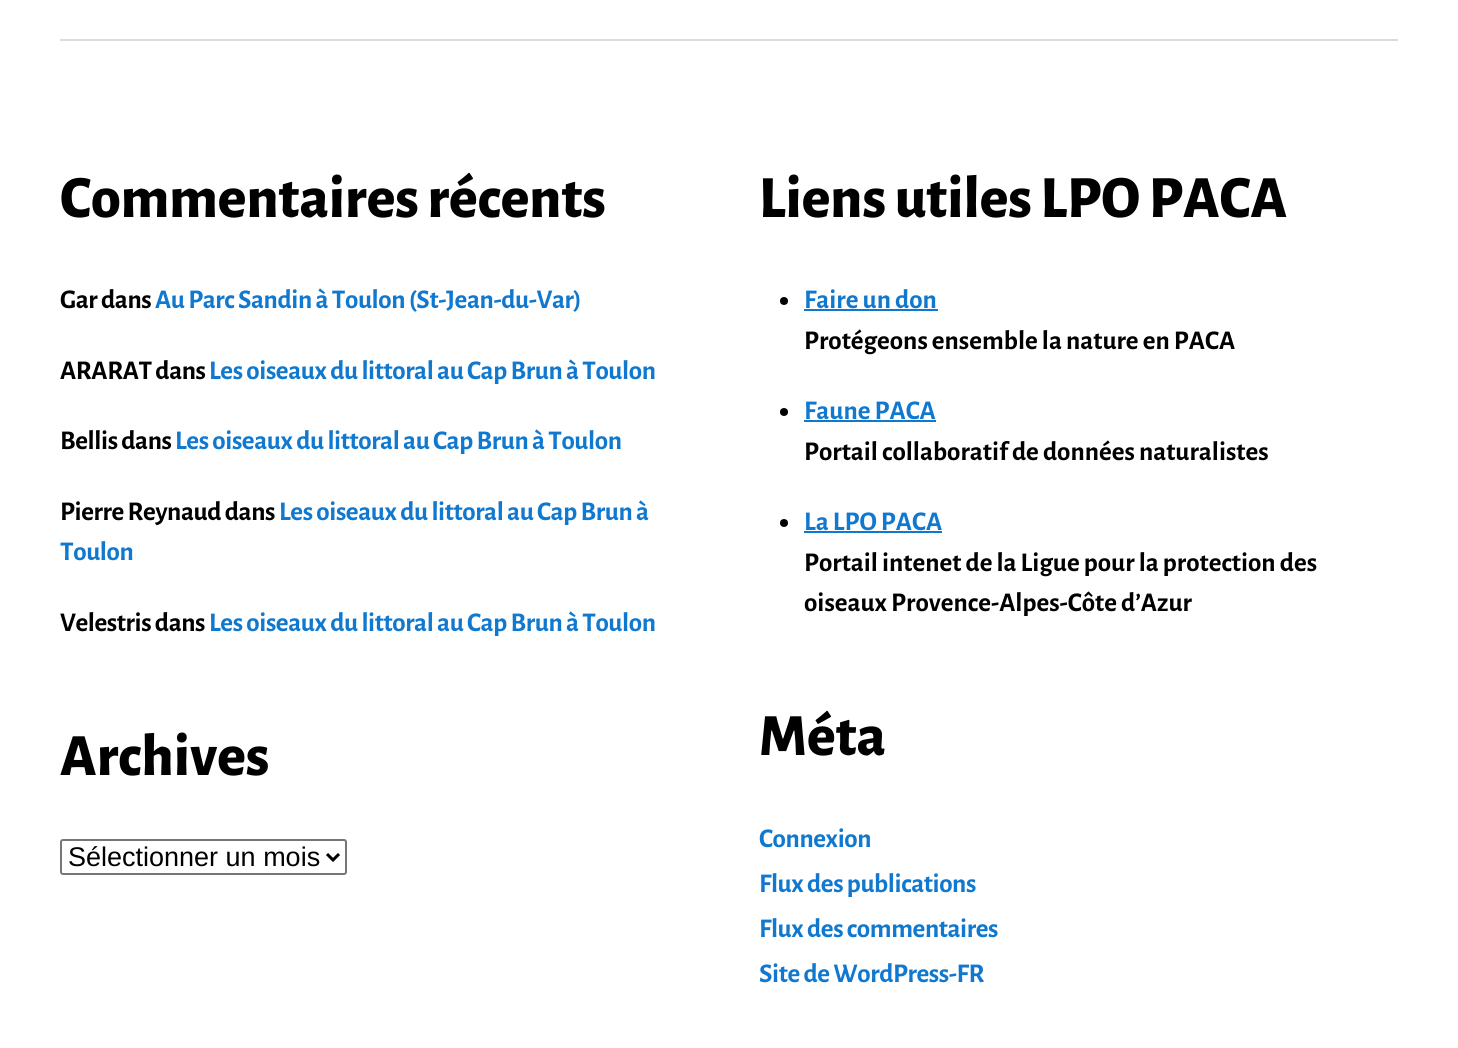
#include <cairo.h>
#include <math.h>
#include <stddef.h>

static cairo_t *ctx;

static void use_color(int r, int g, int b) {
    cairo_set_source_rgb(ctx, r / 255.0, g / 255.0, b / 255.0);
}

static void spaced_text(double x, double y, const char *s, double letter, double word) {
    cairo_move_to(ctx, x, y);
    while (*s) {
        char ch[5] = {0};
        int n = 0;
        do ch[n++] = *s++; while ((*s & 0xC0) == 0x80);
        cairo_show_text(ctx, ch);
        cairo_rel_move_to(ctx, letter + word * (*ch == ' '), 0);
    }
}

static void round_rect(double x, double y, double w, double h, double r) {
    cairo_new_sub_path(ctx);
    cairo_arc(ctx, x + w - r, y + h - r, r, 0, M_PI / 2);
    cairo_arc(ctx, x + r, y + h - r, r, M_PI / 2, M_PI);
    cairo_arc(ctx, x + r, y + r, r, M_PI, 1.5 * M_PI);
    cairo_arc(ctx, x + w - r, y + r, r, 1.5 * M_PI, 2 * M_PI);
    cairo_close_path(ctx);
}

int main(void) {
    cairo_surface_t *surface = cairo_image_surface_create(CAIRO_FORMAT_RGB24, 1458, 1048);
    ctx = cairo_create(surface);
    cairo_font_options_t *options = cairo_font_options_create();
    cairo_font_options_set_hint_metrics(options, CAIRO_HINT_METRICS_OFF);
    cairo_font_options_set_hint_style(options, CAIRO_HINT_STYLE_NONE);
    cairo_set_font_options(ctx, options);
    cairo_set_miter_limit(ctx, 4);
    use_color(255, 255, 255);
    cairo_paint(ctx);
    use_color(219, 219, 219);
    cairo_rectangle(ctx, 60, 39, 1338, 2);
    cairo_fill(ctx);
    cairo_select_font_face(ctx, "Alegreya Sans ExtraBold", CAIRO_FONT_SLANT_NORMAL, CAIRO_FONT_WEIGHT_NORMAL);
    cairo_set_font_size(ctx, 60);
    use_color(0, 0, 0);
    cairo_move_to(ctx, 60, 217);
    cairo_show_text(ctx, "Commentaires récents");
    cairo_select_font_face(ctx, "Alegreya Sans", CAIRO_FONT_SLANT_NORMAL, CAIRO_FONT_WEIGHT_BOLD);
    cairo_set_font_size(ctx, 27);
    spaced_text(60, 308, "Gar dans", -0.4, 0);
    use_color(16, 121, 207);
    spaced_text(155, 308, "Au Parc Sandin à Toulon (St-Jean-du-Var)", -0.4, 0);
    use_color(0, 0, 0);
    spaced_text(60, 379, "ARARAT dans", -0.4, 0);
    use_color(16, 121, 207);
    spaced_text(209, 379, "Les oiseaux du littoral au Cap Brun à Toulon", -0.4, 0);
    use_color(0, 0, 0);
    spaced_text(60, 449, "Bellis dans", -0.4, 0);
    use_color(16, 121, 207);
    spaced_text(175, 449, "Les oiseaux du littoral au Cap Brun à Toulon", -0.4, 0);
    use_color(0, 0, 0);
    spaced_text(60, 520, "Pierre Reynaud dans", -0.4, 0);
    use_color(16, 121, 207);
    spaced_text(279, 520, "Les oiseaux du littoral au Cap Brun à", -0.4, 0);
    spaced_text(60, 560, "Toulon", -0.4, 0);
    use_color(0, 0, 0);
    spaced_text(60, 631, "Velestris dans", -0.4, 0);
    use_color(16, 121, 207);
    spaced_text(209, 631, "Les oiseaux du littoral au Cap Brun à Toulon", -0.4, 0);
    cairo_select_font_face(ctx, "Alegreya Sans ExtraBold", CAIRO_FONT_SLANT_NORMAL, CAIRO_FONT_WEIGHT_NORMAL);
    cairo_set_font_size(ctx, 60);
    use_color(0, 0, 0);
    cairo_move_to(ctx, 60, 775);
    cairo_show_text(ctx, "Archives");
    round_rect(61, 840, 285, 34, 2);
    use_color(118, 118, 118);
    cairo_stroke(ctx);
    cairo_new_path(ctx);
    cairo_move_to(ctx, 327, 854);
    cairo_line_to(ctx, 333, 860);
    cairo_line_to(ctx, 339, 854);
    use_color(0, 0, 0);
    cairo_set_line_width(ctx, 3);
    cairo_stroke(ctx);
    cairo_select_font_face(ctx, "Liberation Sans", CAIRO_FONT_SLANT_NORMAL, CAIRO_FONT_WEIGHT_NORMAL);
    cairo_set_font_size(ctx, 27);
    cairo_move_to(ctx, 68, 866);
    cairo_show_text(ctx, "Sélectionner un mois");
    cairo_select_font_face(ctx, "Alegreya Sans ExtraBold", CAIRO_FONT_SLANT_NORMAL, CAIRO_FONT_WEIGHT_NORMAL);
    cairo_set_font_size(ctx, 60);
    cairo_move_to(ctx, 759, 217);
    cairo_show_text(ctx, "Liens utiles LPO PACA");
    cairo_new_path(ctx);
    cairo_arc(ctx, 784, 301, 4, 0, 2 * M_PI);
    cairo_fill(ctx);
    cairo_select_font_face(ctx, "Alegreya Sans", CAIRO_FONT_SLANT_NORMAL, CAIRO_FONT_WEIGHT_BOLD);
    cairo_set_font_size(ctx, 27);
    use_color(16, 121, 207);
    cairo_move_to(ctx, 804, 308);
    cairo_show_text(ctx, "Faire un don");
    cairo_rectangle(ctx, 804, 309, 134, 2);
    cairo_fill(ctx);
    use_color(0, 0, 0);
    cairo_move_to(ctx, 804, 349);
    cairo_show_text(ctx, "Protégeons ensemble la nature en PACA");
    cairo_new_path(ctx);
    cairo_arc(ctx, 784, 412, 4, 0, 2 * M_PI);
    cairo_fill(ctx);
    use_color(16, 121, 207);
    cairo_move_to(ctx, 804, 419);
    cairo_show_text(ctx, "Faune PACA");
    cairo_rectangle(ctx, 804, 420, 132, 2);
    cairo_fill(ctx);
    use_color(0, 0, 0);
    cairo_move_to(ctx, 804, 460);
    cairo_show_text(ctx, "Portail collaboratif de données naturalistes");
    cairo_new_path(ctx);
    cairo_arc(ctx, 784, 523, 4, 0, 2 * M_PI);
    cairo_fill(ctx);
    use_color(16, 121, 207);
    cairo_move_to(ctx, 804, 530);
    cairo_show_text(ctx, "La LPO PACA");
    cairo_rectangle(ctx, 804, 531, 138, 2);
    cairo_fill(ctx);
    use_color(0, 0, 0);
    cairo_move_to(ctx, 804, 571);
    cairo_show_text(ctx, "Portail intenet de la Ligue pour la protection des");
    cairo_move_to(ctx, 804, 611);
    cairo_show_text(ctx, "oiseaux Provence-Alpes-Côte d’Azur");
    cairo_select_font_face(ctx, "Alegreya Sans ExtraBold", CAIRO_FONT_SLANT_NORMAL, CAIRO_FONT_WEIGHT_NORMAL);
    cairo_set_font_size(ctx, 60);
    cairo_move_to(ctx, 759, 755);
    cairo_show_text(ctx, "Méta");
    cairo_select_font_face(ctx, "Alegreya Sans", CAIRO_FONT_SLANT_NORMAL, CAIRO_FONT_WEIGHT_BOLD);
    cairo_set_font_size(ctx, 27);
    use_color(16, 121, 207);
    spaced_text(759, 847, "Connexion", -0.4, 0);
    spaced_text(759, 892, "Flux des publications", -0.4, 0);
    spaced_text(759, 937, "Flux des commentaires", -0.4, 0);
    spaced_text(759, 982, "Site de WordPress-FR", -0.4, 0);
    cairo_surface_write_to_png(surface, "result.png");
    cairo_font_options_destroy(options);
    cairo_destroy(ctx);
    cairo_surface_destroy(surface);
    return 0;
}
